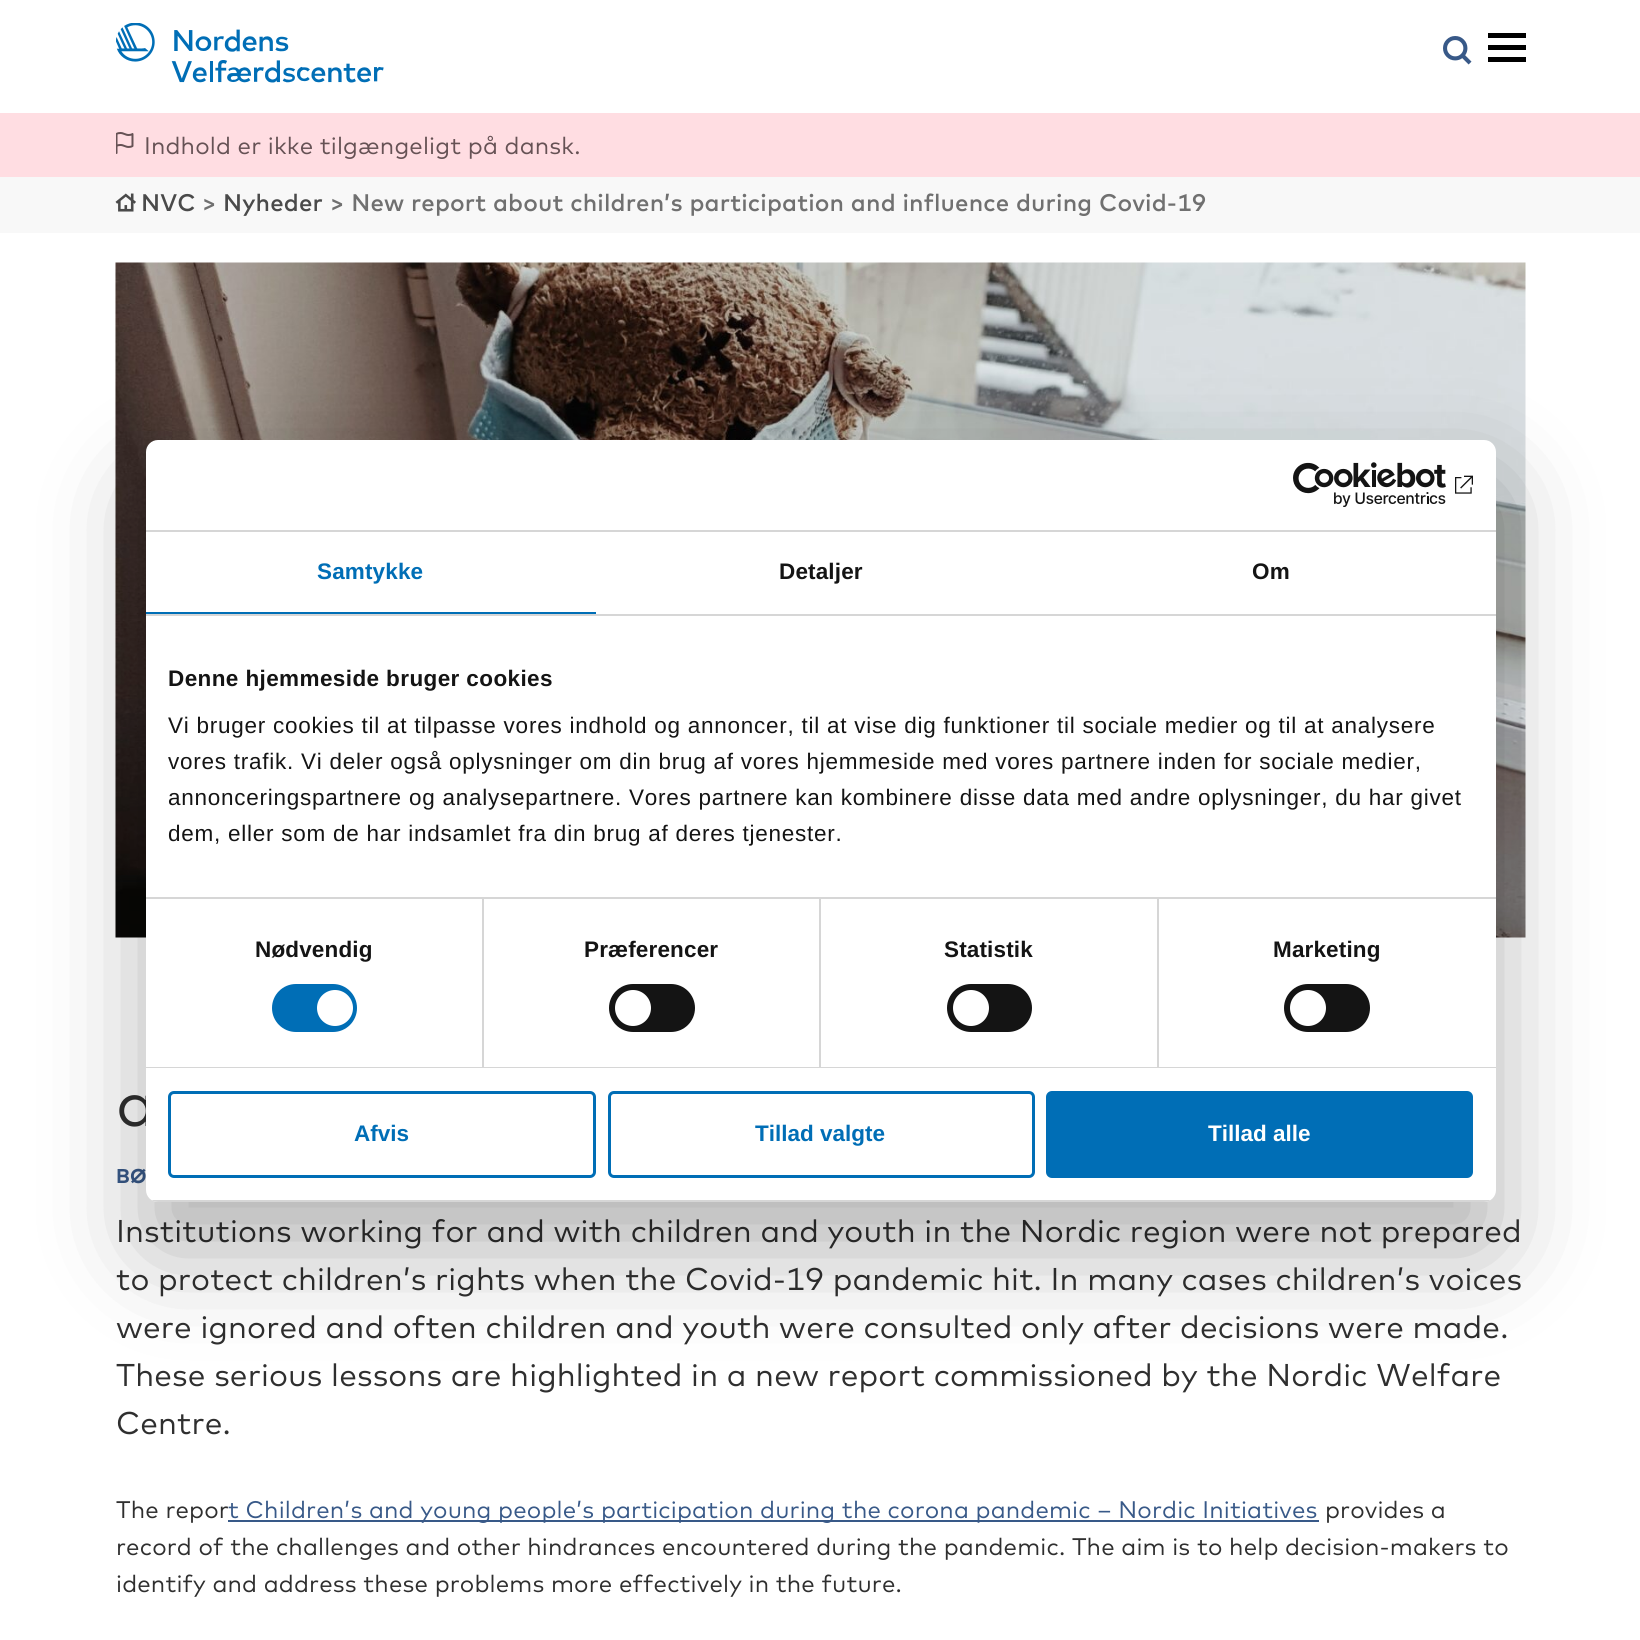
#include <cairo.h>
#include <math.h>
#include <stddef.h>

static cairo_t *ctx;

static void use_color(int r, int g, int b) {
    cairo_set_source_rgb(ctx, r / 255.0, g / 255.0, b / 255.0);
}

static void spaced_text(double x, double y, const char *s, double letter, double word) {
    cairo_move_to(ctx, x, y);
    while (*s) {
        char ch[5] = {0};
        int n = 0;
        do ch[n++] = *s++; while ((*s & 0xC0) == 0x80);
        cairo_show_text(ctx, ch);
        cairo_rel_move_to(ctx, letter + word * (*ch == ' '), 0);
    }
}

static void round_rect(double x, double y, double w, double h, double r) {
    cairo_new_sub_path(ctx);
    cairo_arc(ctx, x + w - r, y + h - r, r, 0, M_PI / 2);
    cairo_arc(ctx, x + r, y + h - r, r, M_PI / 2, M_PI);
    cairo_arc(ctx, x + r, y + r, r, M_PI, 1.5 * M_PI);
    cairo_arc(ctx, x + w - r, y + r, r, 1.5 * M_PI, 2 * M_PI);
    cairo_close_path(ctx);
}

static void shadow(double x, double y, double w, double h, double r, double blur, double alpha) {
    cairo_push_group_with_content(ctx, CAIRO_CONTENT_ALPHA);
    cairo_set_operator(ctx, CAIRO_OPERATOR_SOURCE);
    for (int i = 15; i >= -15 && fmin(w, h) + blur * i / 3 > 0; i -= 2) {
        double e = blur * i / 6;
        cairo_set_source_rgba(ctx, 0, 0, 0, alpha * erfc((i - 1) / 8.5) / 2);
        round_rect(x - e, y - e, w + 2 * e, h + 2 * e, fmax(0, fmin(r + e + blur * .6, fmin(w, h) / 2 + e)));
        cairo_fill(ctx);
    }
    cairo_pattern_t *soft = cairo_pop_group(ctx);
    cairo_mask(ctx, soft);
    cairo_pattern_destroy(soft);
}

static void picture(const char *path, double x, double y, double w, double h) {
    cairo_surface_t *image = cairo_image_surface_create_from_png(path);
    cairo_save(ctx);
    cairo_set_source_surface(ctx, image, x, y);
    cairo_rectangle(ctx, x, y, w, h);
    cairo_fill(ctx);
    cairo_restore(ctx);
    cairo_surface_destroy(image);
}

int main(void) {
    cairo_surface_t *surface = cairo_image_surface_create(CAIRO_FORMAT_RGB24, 1640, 1640);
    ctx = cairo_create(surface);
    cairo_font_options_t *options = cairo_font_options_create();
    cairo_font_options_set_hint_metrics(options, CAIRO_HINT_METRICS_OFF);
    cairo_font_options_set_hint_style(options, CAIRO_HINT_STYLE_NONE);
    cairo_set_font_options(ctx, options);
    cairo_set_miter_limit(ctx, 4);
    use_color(255, 255, 255);
    cairo_paint(ctx);
    picture("img1.png", 116, 23, 268, 60);
    picture("img2.png", 1443, 36, 29, 29);
    use_color(0, 0, 0);
    cairo_rectangle(ctx, 1488, 45, 38, 5);
    cairo_fill(ctx);
    cairo_rectangle(ctx, 1488, 33, 38, 5);
    cairo_fill(ctx);
    cairo_rectangle(ctx, 1488, 57, 38, 5);
    cairo_fill(ctx);
    use_color(255, 221, 226);
    cairo_rectangle(ctx, 0, 113, 1640, 64);
    cairo_fill(ctx);
    picture("img3.png", 116, 132, 18, 22);
    cairo_select_font_face(ctx, "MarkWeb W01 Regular", CAIRO_FONT_SLANT_NORMAL, CAIRO_FONT_WEIGHT_NORMAL);
    cairo_set_font_size(ctx, 24);
    use_color(102, 82, 85);
    spaced_text(144, 154, "Indhold er ikke tilgængeligt på dansk.", 0.15, 0);
    use_color(248, 248, 248);
    cairo_rectangle(ctx, 0, 177, 1640, 56);
    cairo_fill(ctx);
    picture("img4.png", 115, 193, 21, 19);
    cairo_select_font_face(ctx, "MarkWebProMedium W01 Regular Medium", CAIRO_FONT_SLANT_NORMAL, CAIRO_FONT_WEIGHT_NORMAL);
    use_color(74, 74, 74);
    spaced_text(141, 211, "NVC", 0.15, 0);
    use_color(112, 112, 112);
    spaced_text(202, 211, ">", 0.15, 0);
    use_color(74, 74, 74);
    spaced_text(223, 211, "Nyheder", 0.15, 0);
    use_color(112, 112, 112);
    spaced_text(330, 211, "> New report about children’s participation and influence during Covid-19", 0.15, 0);
    picture("img5.png", 115, 262, 1411, 676);
    cairo_select_font_face(ctx, "MarkWeb W01 Regular", CAIRO_FONT_SLANT_NORMAL, CAIRO_FONT_WEIGHT_NORMAL);
    cairo_set_font_size(ctx, 64);
    use_color(47, 47, 47);
    spaced_text(116, 1126, "a", 0.15, 0);
    cairo_select_font_face(ctx, "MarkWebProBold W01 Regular", CAIRO_FONT_SLANT_NORMAL, CAIRO_FONT_WEIGHT_BOLD);
    cairo_set_font_size(ctx, 20);
    use_color(56, 89, 136);
    spaced_text(116, 1183, "BØ", 0.15, 0);
    cairo_select_font_face(ctx, "MarkWeb W01 Regular", CAIRO_FONT_SLANT_NORMAL, CAIRO_FONT_WEIGHT_NORMAL);
    cairo_set_font_size(ctx, 31.5);
    use_color(47, 47, 47);
    spaced_text(116, 1242, "Institutions working for and with children and youth in the Nordic region were not prepared", 0.15, 0);
    spaced_text(116, 1290, "to protect children’s rights when the Covid-19 pandemic hit. In many cases children’s voices", 0.15, 0);
    spaced_text(116, 1338, "were ignored and often children and youth were consulted only after decisions were made.", 0.15, 0);
    spaced_text(116, 1386, "These serious lessons are highlighted in a new report commissioned by the Nordic Welfare", 0.15, 0);
    spaced_text(116, 1434, "Centre.", 0.15, 0);
    cairo_set_font_size(ctx, 24);
    spaced_text(116, 1518, "The repor", 0.15, 0);
    use_color(56, 89, 136);
    cairo_rectangle(ctx, 228, 1520, 1091, 2);
    cairo_fill(ctx);
    spaced_text(228, 1518, "t Children’s and young people’s participation during the corona pandemic – Nordic Initiatives", 0.15, 0);
    use_color(47, 47, 47);
    spaced_text(1325, 1518, "provides a", 0.15, 0);
    spaced_text(116, 1555, "record of the challenges and other hindrances encountered during the pandemic. The aim is to help decision-makers to", 0.15, 0);
    spaced_text(116, 1592, "identify and address these problems more effectively in the future.", 0.15, 0);
    use_color(0, 0, 0);
    shadow(146, 488, 1350, 762, 12, 51, 0.3);
    use_color(255, 255, 255);
    round_rect(146, 440, 1350, 762, 12);
    cairo_fill(ctx);
    use_color(214, 214, 214);
    cairo_rectangle(ctx, 146, 530, 1350, 2);
    cairo_fill(ctx);
    picture("img6.png", 1293, 462, 153, 45);
    picture("img7.png", 1455, 475, 18, 19);
    cairo_rectangle(ctx, 146, 614, 1350, 2);
    cairo_fill(ctx);
    use_color(0, 110, 182);
    cairo_rectangle(ctx, 146, 612, 450, 2);
    cairo_fill(ctx);
    cairo_select_font_face(ctx, "Liberation Sans", CAIRO_FONT_SLANT_NORMAL, CAIRO_FONT_WEIGHT_BOLD);
    cairo_set_font_size(ctx, 22.5);
    spaced_text(317, 579, "Samtykke", 0.15, 0);
    use_color(20, 20, 20);
    spaced_text(779, 579, "Detaljer", 0.15, 0);
    spaced_text(1252, 579, "Om", 0.15, 0);
    use_color(214, 214, 214);
    cairo_rectangle(ctx, 146, 897, 1350, 2);
    cairo_fill(ctx);
    use_color(20, 20, 20);
    spaced_text(168, 686, "Denne hjemmeside bruger cookies", 0.4, 0);
    cairo_select_font_face(ctx, "Liberation Sans", CAIRO_FONT_SLANT_NORMAL, CAIRO_FONT_WEIGHT_NORMAL);
    spaced_text(168, 733, "Vi bruger cookies til at tilpasse vores indhold og annoncer, til at vise dig funktioner til sociale medier og til at analysere", 0.75, 0);
    spaced_text(168, 769, "vores trafik. Vi deler også oplysninger om din brug af vores hjemmeside med vores partnere inden for sociale medier,", 0.75, 0);
    spaced_text(168, 805, "annonceringspartnere og analysepartnere. Vores partnere kan kombinere disse data med andre oplysninger, du har givet", 0.75, 0);
    spaced_text(168, 841, "dem, eller som de har indsamlet fra din brug af deres tjenester.", 0.75, 0);
    use_color(214, 214, 214);
    cairo_rectangle(ctx, 146, 1067, 1350, 1);
    cairo_fill(ctx);
    cairo_rectangle(ctx, 482, 899, 2, 168);
    cairo_fill(ctx);
    cairo_select_font_face(ctx, "Liberation Sans", CAIRO_FONT_SLANT_NORMAL, CAIRO_FONT_WEIGHT_BOLD);
    use_color(20, 20, 20);
    spaced_text(255, 957, "Nødvendig", 0.15, 0);
    use_color(0, 110, 182);
    round_rect(272, 984, 85, 48, 24);
    cairo_fill(ctx);
    use_color(255, 255, 255);
    cairo_arc(ctx, 335, 1008, 18, 0, 2 * M_PI);
    cairo_fill(ctx);
    use_color(214, 214, 214);
    cairo_rectangle(ctx, 819, 899, 2, 168);
    cairo_fill(ctx);
    use_color(20, 20, 20);
    spaced_text(584, 957, "Præferencer", 0.15, 0);
    round_rect(609, 984, 86, 48, 24);
    cairo_fill(ctx);
    use_color(255, 255, 255);
    cairo_arc(ctx, 633, 1008, 18, 0, 2 * M_PI);
    cairo_fill(ctx);
    use_color(214, 214, 214);
    cairo_rectangle(ctx, 1157, 899, 2, 168);
    cairo_fill(ctx);
    use_color(20, 20, 20);
    spaced_text(944, 957, "Statistik", 0.15, 0);
    round_rect(947, 984, 85, 48, 24);
    cairo_fill(ctx);
    use_color(255, 255, 255);
    cairo_arc(ctx, 971, 1008, 18, 0, 2 * M_PI);
    cairo_fill(ctx);
    use_color(20, 20, 20);
    spaced_text(1273, 957, "Marketing", 0.15, 0);
    round_rect(1284, 984, 86, 48, 24);
    cairo_fill(ctx);
    use_color(255, 255, 255);
    cairo_arc(ctx, 1308, 1008, 18, 0, 2 * M_PI);
    cairo_fill(ctx);
    cairo_save(ctx);
    round_rect(146, 440, 1350, 762, 12);
    cairo_clip(ctx);
    use_color(214, 214, 214);
    cairo_rectangle(ctx, 146, 1200, 1350, 2);
    cairo_fill(ctx);
    cairo_restore(ctx);
    round_rect(169.5, 1092.5, 425, 84, 4.5);
    use_color(0, 110, 182);
    cairo_set_line_width(ctx, 3);
    cairo_stroke(ctx);
    cairo_move_to(ctx, 354, 1141);
    cairo_show_text(ctx, "Afvis");
    round_rect(609.5, 1092.5, 424, 84, 4.5);
    cairo_stroke(ctx);
    cairo_move_to(ctx, 755, 1141);
    cairo_show_text(ctx, "Tillad valgte");
    round_rect(1047.5, 1092.5, 424, 84, 4.5);
    cairo_fill_preserve(ctx);
    cairo_stroke(ctx);
    use_color(255, 255, 255);
    cairo_move_to(ctx, 1208, 1141);
    cairo_show_text(ctx, "Tillad alle");
    cairo_surface_write_to_png(surface, "result.png");
    cairo_font_options_destroy(options);
    cairo_destroy(ctx);
    cairo_surface_destroy(surface);
    return 0;
}
